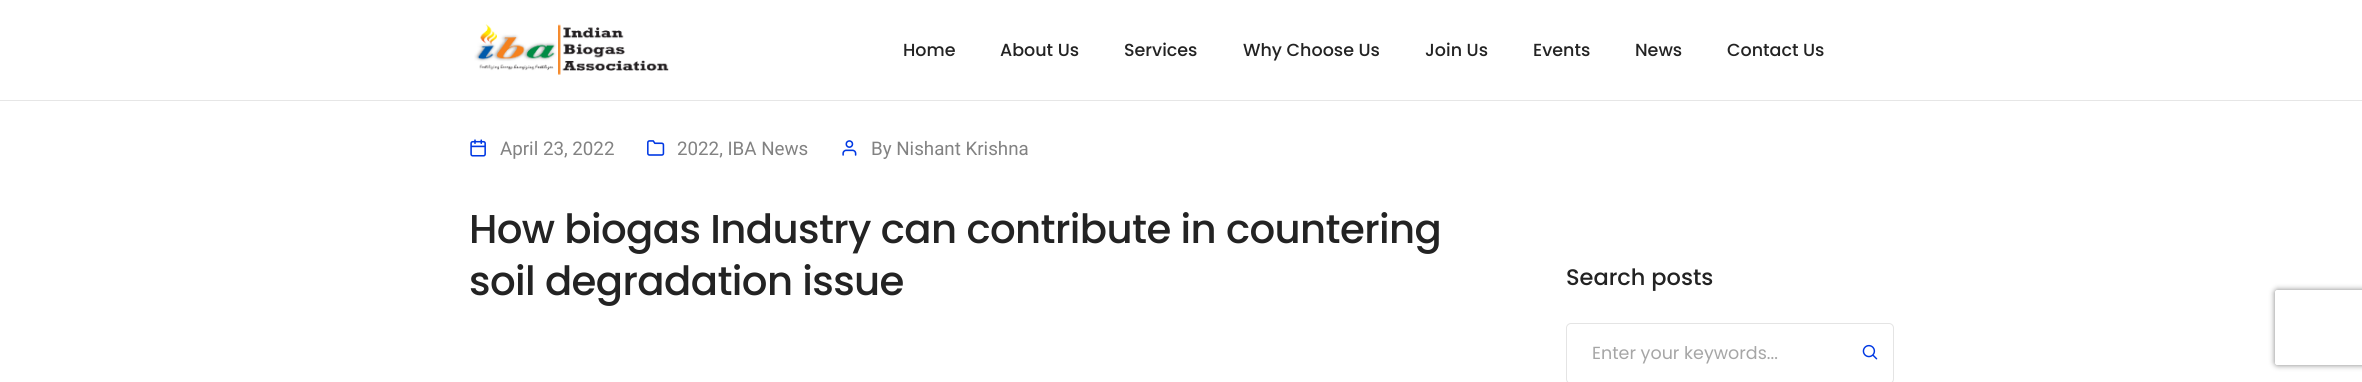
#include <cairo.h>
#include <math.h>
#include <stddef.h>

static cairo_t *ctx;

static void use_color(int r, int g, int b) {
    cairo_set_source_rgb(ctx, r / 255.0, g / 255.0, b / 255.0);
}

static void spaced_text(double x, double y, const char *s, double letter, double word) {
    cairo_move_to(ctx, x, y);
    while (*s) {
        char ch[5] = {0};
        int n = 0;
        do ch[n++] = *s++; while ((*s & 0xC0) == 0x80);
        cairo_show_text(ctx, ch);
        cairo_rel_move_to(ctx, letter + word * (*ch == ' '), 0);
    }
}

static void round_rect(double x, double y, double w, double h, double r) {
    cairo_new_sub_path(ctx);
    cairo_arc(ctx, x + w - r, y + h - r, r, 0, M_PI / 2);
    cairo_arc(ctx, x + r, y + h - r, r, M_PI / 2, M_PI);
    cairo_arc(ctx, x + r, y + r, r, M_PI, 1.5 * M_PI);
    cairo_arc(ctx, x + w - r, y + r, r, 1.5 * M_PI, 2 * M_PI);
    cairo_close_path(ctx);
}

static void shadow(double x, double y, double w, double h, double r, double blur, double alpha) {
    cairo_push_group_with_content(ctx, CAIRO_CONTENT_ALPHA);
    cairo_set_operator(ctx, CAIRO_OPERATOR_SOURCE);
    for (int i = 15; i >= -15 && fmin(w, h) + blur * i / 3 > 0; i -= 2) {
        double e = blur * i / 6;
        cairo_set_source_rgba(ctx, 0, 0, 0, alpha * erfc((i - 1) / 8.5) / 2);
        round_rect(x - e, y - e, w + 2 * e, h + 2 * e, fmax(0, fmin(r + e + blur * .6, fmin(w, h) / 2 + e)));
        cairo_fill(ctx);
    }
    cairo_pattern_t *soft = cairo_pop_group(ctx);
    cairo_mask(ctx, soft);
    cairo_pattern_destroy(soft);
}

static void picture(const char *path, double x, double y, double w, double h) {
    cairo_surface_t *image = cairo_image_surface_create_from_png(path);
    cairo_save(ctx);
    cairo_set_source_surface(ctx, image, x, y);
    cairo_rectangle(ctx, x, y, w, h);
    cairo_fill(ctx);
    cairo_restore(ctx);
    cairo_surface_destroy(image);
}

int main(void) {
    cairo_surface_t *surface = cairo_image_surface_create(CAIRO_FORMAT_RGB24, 2362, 382);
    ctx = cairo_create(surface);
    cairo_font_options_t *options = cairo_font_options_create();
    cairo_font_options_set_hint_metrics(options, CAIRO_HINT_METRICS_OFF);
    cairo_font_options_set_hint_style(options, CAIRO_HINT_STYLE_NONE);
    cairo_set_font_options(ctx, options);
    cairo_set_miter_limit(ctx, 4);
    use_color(255, 255, 255);
    cairo_paint(ctx);
    use_color(230, 230, 230);
    cairo_rectangle(ctx, 0, 100, 2362, 1);
    cairo_fill(ctx);
    picture("img1.png", 474, 24, 195, 51);
    cairo_select_font_face(ctx, "Poppins Medium", CAIRO_FONT_SLANT_NORMAL, CAIRO_FONT_WEIGHT_NORMAL);
    cairo_set_font_size(ctx, 17.5);
    use_color(35, 35, 35);
    cairo_move_to(ctx, 903, 56);
    cairo_show_text(ctx, "Home");
    cairo_move_to(ctx, 1000, 56);
    cairo_show_text(ctx, "About Us");
    cairo_move_to(ctx, 1124, 56);
    cairo_show_text(ctx, "Services");
    cairo_move_to(ctx, 1243, 56);
    cairo_show_text(ctx, "Why Choose Us");
    cairo_move_to(ctx, 1425, 56);
    cairo_show_text(ctx, "Join Us");
    cairo_move_to(ctx, 1533, 56);
    cairo_show_text(ctx, "Events");
    cairo_move_to(ctx, 1635, 56);
    cairo_show_text(ctx, "News");
    cairo_move_to(ctx, 1727, 56);
    cairo_show_text(ctx, "Contact Us");
    picture("img2.png", 470, 139, 16, 18);
    cairo_select_font_face(ctx, "Roboto", CAIRO_FONT_SLANT_NORMAL, CAIRO_FONT_WEIGHT_NORMAL);
    cairo_set_font_size(ctx, 18.75);
    use_color(130, 130, 130);
    cairo_move_to(ctx, 500, 155);
    cairo_show_text(ctx, "April 23, 2022");
    picture("img3.png", 647, 140, 18, 16);
    cairo_move_to(ctx, 677, 155);
    cairo_show_text(ctx, "2022, IBA News");
    picture("img4.png", 842, 140, 15, 16);
    cairo_move_to(ctx, 871, 155);
    cairo_show_text(ctx, "By Nishant Krishna");
    cairo_select_font_face(ctx, "Poppins Medium", CAIRO_FONT_SLANT_NORMAL, CAIRO_FONT_WEIGHT_NORMAL);
    cairo_set_font_size(ctx, 40.25);
    use_color(35, 35, 35);
    spaced_text(469, 243, "How biogas Industry can contribute in countering", -0.6, 0);
    spaced_text(469, 295, "soil degradation issue", -0.6, 0);
    cairo_set_font_size(ctx, 22.5);
    cairo_move_to(ctx, 1566, 285);
    cairo_show_text(ctx, "Search posts");
    round_rect(1566.5, 323.5, 327, 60, 4.5);
    use_color(228, 228, 228);
    cairo_set_line_width(ctx, 1);
    cairo_stroke(ctx);
    cairo_select_font_face(ctx, "Poppins", CAIRO_FONT_SLANT_NORMAL, CAIRO_FONT_WEIGHT_NORMAL);
    cairo_set_font_size(ctx, 17.5);
    use_color(166, 166, 166);
    cairo_move_to(ctx, 1592, 359);
    cairo_show_text(ctx, "Enter your keywords...");
    picture("img5.png", 1862, 344, 16, 16);
    cairo_save(ctx);
    cairo_set_fill_rule(ctx, CAIRO_FILL_RULE_EVEN_ODD);
    cairo_new_path(ctx);
    cairo_move_to(ctx, 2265, 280);
    cairo_line_to(ctx, 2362, 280);
    cairo_line_to(ctx, 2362, 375);
    cairo_line_to(ctx, 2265, 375);
    cairo_close_path(ctx);
    cairo_move_to(ctx, 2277.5, 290);
    cairo_line_to(ctx, 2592.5, 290);
    cairo_curve_to(ctx, 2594, 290, 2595, 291, 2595, 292.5);
    cairo_line_to(ctx, 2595, 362.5);
    cairo_curve_to(ctx, 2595, 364, 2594, 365, 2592.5, 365);
    cairo_line_to(ctx, 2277.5, 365);
    cairo_curve_to(ctx, 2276, 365, 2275, 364, 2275, 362.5);
    cairo_line_to(ctx, 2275, 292.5);
    cairo_curve_to(ctx, 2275, 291, 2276, 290, 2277.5, 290);
    cairo_close_path(ctx);
    cairo_clip(ctx);
    use_color(128, 128, 128);
    shadow(2275, 290, 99, 75, 2.5, 3, 1);
    cairo_restore(ctx);
    cairo_surface_write_to_png(surface, "result.png");
    cairo_font_options_destroy(options);
    cairo_destroy(ctx);
    cairo_surface_destroy(surface);
    return 0;
}
